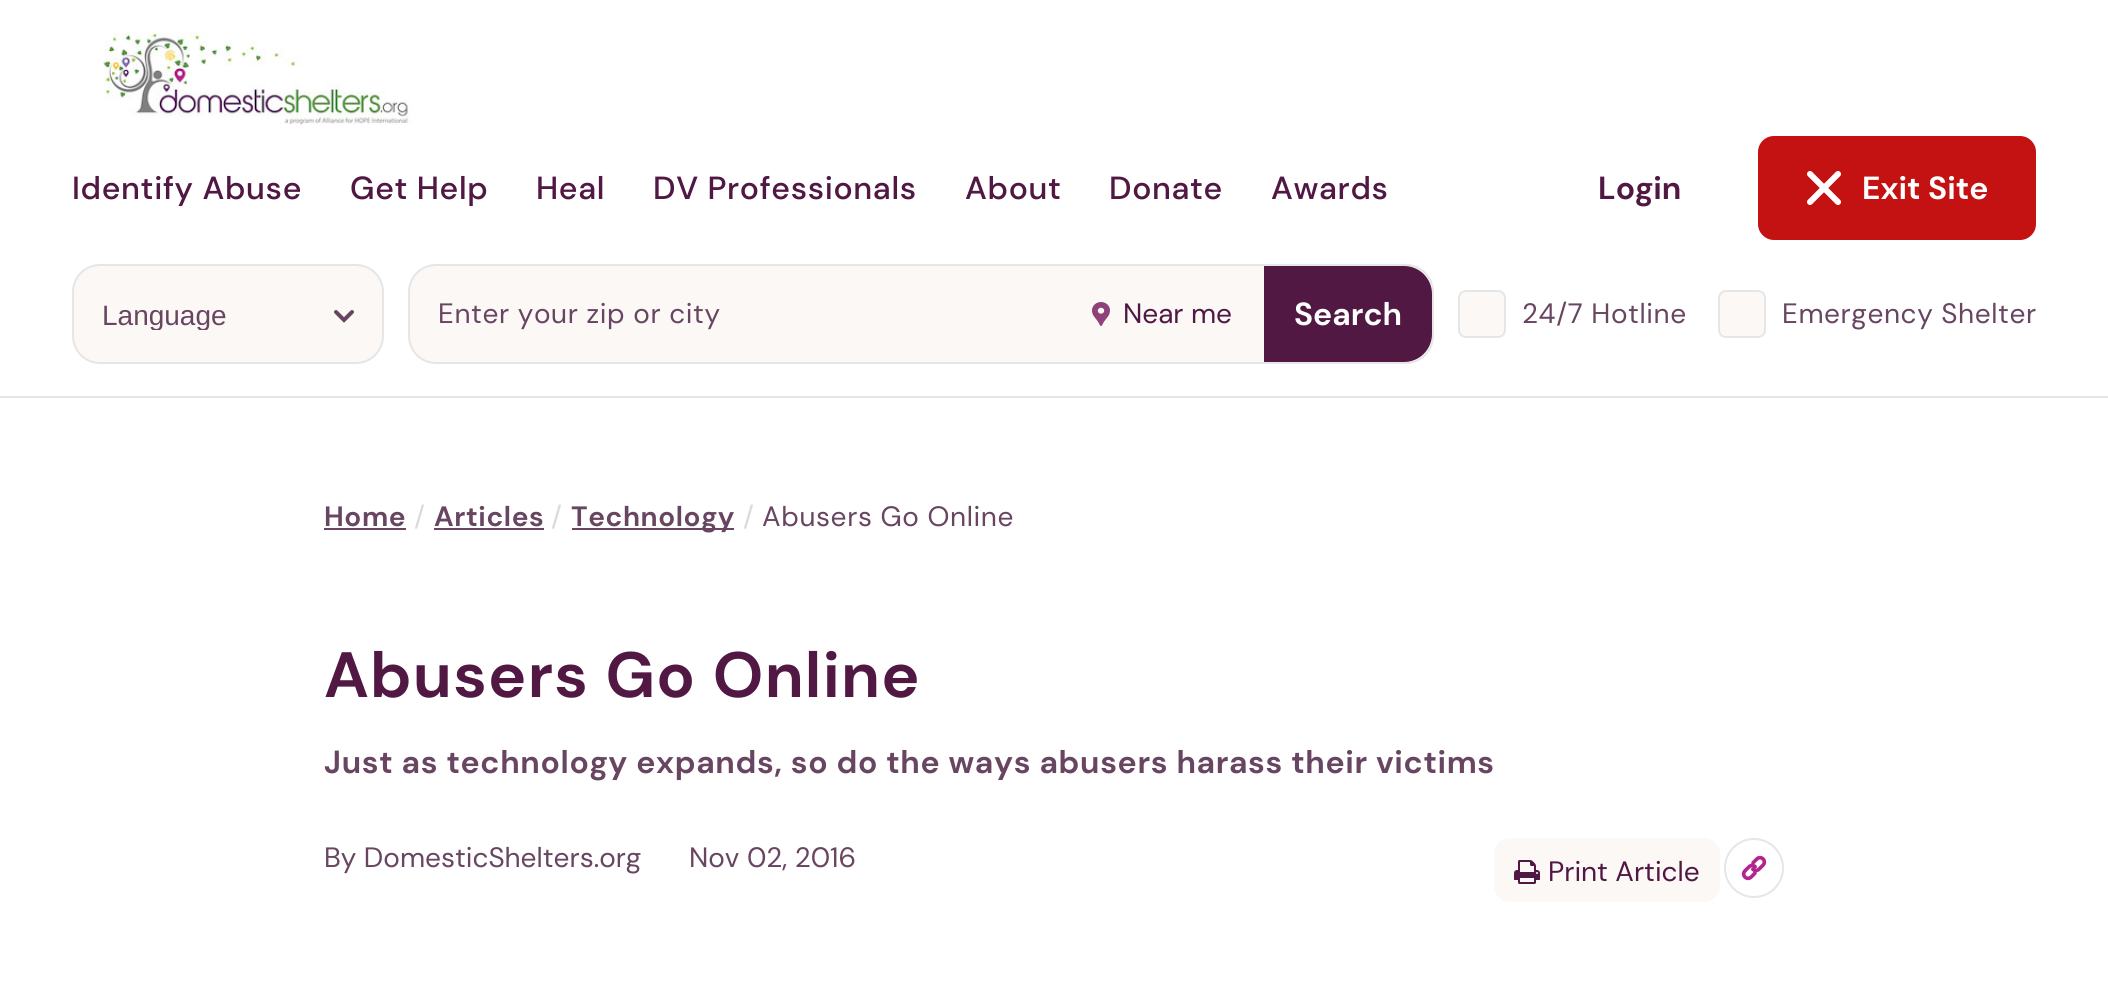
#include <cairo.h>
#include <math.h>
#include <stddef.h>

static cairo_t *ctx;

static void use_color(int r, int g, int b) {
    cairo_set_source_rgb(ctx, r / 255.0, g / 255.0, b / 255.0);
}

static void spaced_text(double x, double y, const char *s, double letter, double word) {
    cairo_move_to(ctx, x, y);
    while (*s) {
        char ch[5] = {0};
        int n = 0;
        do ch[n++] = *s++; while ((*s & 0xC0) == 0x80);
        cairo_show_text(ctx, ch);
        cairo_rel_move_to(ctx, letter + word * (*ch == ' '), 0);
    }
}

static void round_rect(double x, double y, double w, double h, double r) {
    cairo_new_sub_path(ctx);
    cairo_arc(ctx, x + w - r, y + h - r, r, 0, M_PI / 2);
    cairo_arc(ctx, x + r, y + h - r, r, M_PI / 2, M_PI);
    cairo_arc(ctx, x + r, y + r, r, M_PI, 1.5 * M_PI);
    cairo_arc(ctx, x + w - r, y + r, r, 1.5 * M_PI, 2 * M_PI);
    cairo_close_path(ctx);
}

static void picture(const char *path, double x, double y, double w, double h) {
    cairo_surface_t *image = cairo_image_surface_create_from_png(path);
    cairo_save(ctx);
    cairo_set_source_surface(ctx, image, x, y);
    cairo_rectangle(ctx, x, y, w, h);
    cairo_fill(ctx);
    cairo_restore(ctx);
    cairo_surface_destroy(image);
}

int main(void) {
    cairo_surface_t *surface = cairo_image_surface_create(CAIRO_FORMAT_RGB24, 2108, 982);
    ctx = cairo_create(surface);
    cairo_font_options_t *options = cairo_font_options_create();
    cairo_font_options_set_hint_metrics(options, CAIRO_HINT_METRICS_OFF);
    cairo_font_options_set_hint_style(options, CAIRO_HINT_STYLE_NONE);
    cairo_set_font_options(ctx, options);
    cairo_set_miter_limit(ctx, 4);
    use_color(255, 255, 255);
    cairo_paint(ctx);
    use_color(230, 230, 230);
    cairo_rectangle(ctx, 0, 396, 2108, 2);
    cairo_fill(ctx);
    picture("img1.png", 103, 32, 308, 93);
    cairo_select_font_face(ctx, "DM Sans Medium", CAIRO_FONT_SLANT_NORMAL, CAIRO_FONT_WEIGHT_NORMAL);
    cairo_set_font_size(ctx, 32);
    use_color(80, 24, 67);
    spaced_text(72, 199, "Identify Abuse", 0.65, 0);
    spaced_text(350, 199, "Get Help", 0.65, 0);
    spaced_text(536, 199, "Heal", 0.65, 0);
    spaced_text(653, 199, "DV Professionals", 0.65, 0);
    spaced_text(965, 199, "About", 0.65, 0);
    spaced_text(1109, 199, "Donate", 0.65, 0);
    spaced_text(1271, 199, "Awards", 0.65, 0);
    cairo_select_font_face(ctx, "DM Sans", CAIRO_FONT_SLANT_NORMAL, CAIRO_FONT_WEIGHT_BOLD);
    cairo_move_to(ctx, 1598, 199);
    cairo_show_text(ctx, "Login");
    use_color(196, 17, 17);
    round_rect(1758, 136, 278, 104, 16);
    cairo_fill(ctx);
    cairo_new_path(ctx);
    cairo_move_to(ctx, 1810, 174);
    cairo_line_to(ctx, 1824, 188);
    cairo_line_to(ctx, 1810, 202);
    cairo_move_to(ctx, 1838, 202);
    cairo_line_to(ctx, 1824, 188);
    cairo_line_to(ctx, 1838, 174);
    use_color(255, 255, 255);
    cairo_set_line_width(ctx, 6);
    cairo_set_line_cap(ctx, CAIRO_LINE_CAP_ROUND);
    cairo_stroke(ctx);
    cairo_move_to(ctx, 1862, 199);
    cairo_show_text(ctx, "Exit Site");
    use_color(251, 248, 246);
    round_rect(73, 265, 310, 98, 27);
    cairo_fill_preserve(ctx);
    use_color(230, 230, 230);
    cairo_set_line_width(ctx, 2);
    cairo_set_line_cap(ctx, CAIRO_LINE_CAP_BUTT);
    cairo_stroke(ctx);
    cairo_save(ctx);
    cairo_rectangle(ctx, 102, 298, 232, 32);
    cairo_clip(ctx);
    cairo_select_font_face(ctx, "Liberation Sans", CAIRO_FONT_SLANT_NORMAL, CAIRO_FONT_WEIGHT_NORMAL);
    cairo_set_font_size(ctx, 28);
    use_color(104, 69, 97);
    cairo_move_to(ctx, 102, 325);
    cairo_show_text(ctx, "Language");
    cairo_restore(ctx);
    picture("img2.png", 334, 310, 20, 13);
    use_color(251, 248, 246);
    round_rect(409, 265, 1024, 98, 27);
    cairo_fill_preserve(ctx);
    use_color(230, 230, 230);
    cairo_stroke(ctx);
    cairo_select_font_face(ctx, "DM Sans", CAIRO_FONT_SLANT_NORMAL, CAIRO_FONT_WEIGHT_NORMAL);
    cairo_set_font_size(ctx, 28);
    use_color(104, 69, 97);
    spaced_text(438, 323, "Enter your zip or city", 0.6, 0);
    picture("img3.png", 1092, 302, 18, 24);
    use_color(80, 24, 67);
    cairo_move_to(ctx, 1123, 323);
    cairo_show_text(ctx, "Near me");
    cairo_new_path(ctx);
    cairo_move_to(ctx, 1264, 266);
    cairo_line_to(ctx, 1404, 266);
    cairo_curve_to(ctx, 1419.5, 266, 1432, 278.5, 1432, 294);
    cairo_line_to(ctx, 1432, 334);
    cairo_curve_to(ctx, 1432, 349.5, 1419.5, 362, 1404, 362);
    cairo_line_to(ctx, 1264, 362);
    cairo_close_path(ctx);
    cairo_fill(ctx);
    cairo_select_font_face(ctx, "DM Sans", CAIRO_FONT_SLANT_NORMAL, CAIRO_FONT_WEIGHT_BOLD);
    cairo_set_font_size(ctx, 32);
    use_color(255, 255, 255);
    cairo_move_to(ctx, 1294, 325);
    cairo_show_text(ctx, "Search");
    use_color(251, 248, 246);
    round_rect(1459, 291, 46, 46, 7);
    cairo_fill_preserve(ctx);
    use_color(230, 230, 230);
    cairo_stroke(ctx);
    cairo_select_font_face(ctx, "DM Sans", CAIRO_FONT_SLANT_NORMAL, CAIRO_FONT_WEIGHT_NORMAL);
    cairo_set_font_size(ctx, 28);
    use_color(104, 69, 97);
    spaced_text(1522, 323, "24/7 Hotline", 0.6, 0);
    use_color(251, 248, 246);
    round_rect(1719, 291, 46, 46, 7);
    cairo_fill_preserve(ctx);
    use_color(230, 230, 230);
    cairo_stroke(ctx);
    use_color(104, 69, 97);
    spaced_text(1782, 323, "Emergency Shelter", 0.6, 0);
    cairo_select_font_face(ctx, "DM Sans", CAIRO_FONT_SLANT_NORMAL, CAIRO_FONT_WEIGHT_BOLD);
    spaced_text(324, 526, "Home", 0.6, 0);
    cairo_rectangle(ctx, 324, 528, 82, 2);
    cairo_fill(ctx);
    cairo_select_font_face(ctx, "DM Sans", CAIRO_FONT_SLANT_NORMAL, CAIRO_FONT_WEIGHT_NORMAL);
    use_color(218, 218, 218);
    spaced_text(414, 526, "/", 0.6, 0);
    cairo_select_font_face(ctx, "DM Sans", CAIRO_FONT_SLANT_NORMAL, CAIRO_FONT_WEIGHT_BOLD);
    use_color(104, 69, 97);
    spaced_text(434, 526, "Articles", 0.6, 0);
    cairo_rectangle(ctx, 434, 528, 110, 2);
    cairo_fill(ctx);
    cairo_select_font_face(ctx, "DM Sans", CAIRO_FONT_SLANT_NORMAL, CAIRO_FONT_WEIGHT_NORMAL);
    use_color(218, 218, 218);
    spaced_text(551, 526, "/", 0.6, 0);
    use_color(104, 69, 97);
    cairo_rectangle(ctx, 572, 528, 162, 2);
    cairo_fill(ctx);
    cairo_select_font_face(ctx, "DM Sans", CAIRO_FONT_SLANT_NORMAL, CAIRO_FONT_WEIGHT_BOLD);
    spaced_text(571, 526, "Technology", 0.6, 0);
    cairo_select_font_face(ctx, "DM Sans", CAIRO_FONT_SLANT_NORMAL, CAIRO_FONT_WEIGHT_NORMAL);
    use_color(218, 218, 218);
    spaced_text(743, 526, "/", 0.6, 0);
    use_color(104, 69, 97);
    spaced_text(762, 526, "Abusers Go Online", 0.6, 0);
    cairo_select_font_face(ctx, "DM Sans", CAIRO_FONT_SLANT_NORMAL, CAIRO_FONT_WEIGHT_BOLD);
    cairo_set_font_size(ctx, 64);
    use_color(80, 24, 67);
    spaced_text(324, 697, "Abusers Go Online", 1.25, 0);
    cairo_set_font_size(ctx, 32);
    use_color(104, 69, 97);
    spaced_text(324, 773, "Just as technology expands, so do the ways abusers harass their victims", 0.65, 0);
    cairo_select_font_face(ctx, "DM Sans", CAIRO_FONT_SLANT_NORMAL, CAIRO_FONT_WEIGHT_NORMAL);
    cairo_set_font_size(ctx, 28);
    cairo_move_to(ctx, 324, 867);
    cairo_show_text(ctx, "By DomesticShelters.org");
    cairo_move_to(ctx, 689, 867);
    cairo_show_text(ctx, "Nov 02, 2016");
    use_color(251, 248, 246);
    round_rect(1494, 838, 226, 64, 16);
    cairo_fill(ctx);
    picture("img4.png", 1514, 860, 26, 24);
    use_color(80, 24, 67);
    cairo_move_to(ctx, 1548, 881);
    cairo_show_text(ctx, "Print Article");
    cairo_new_path(ctx);
    cairo_arc(ctx, 1754, 868, 29, 0, 2 * M_PI);
    use_color(230, 230, 230);
    cairo_stroke(ctx);
    picture("img5.png", 1741, 855, 26, 26);
    cairo_surface_write_to_png(surface, "result.png");
    cairo_font_options_destroy(options);
    cairo_destroy(ctx);
    cairo_surface_destroy(surface);
    return 0;
}
